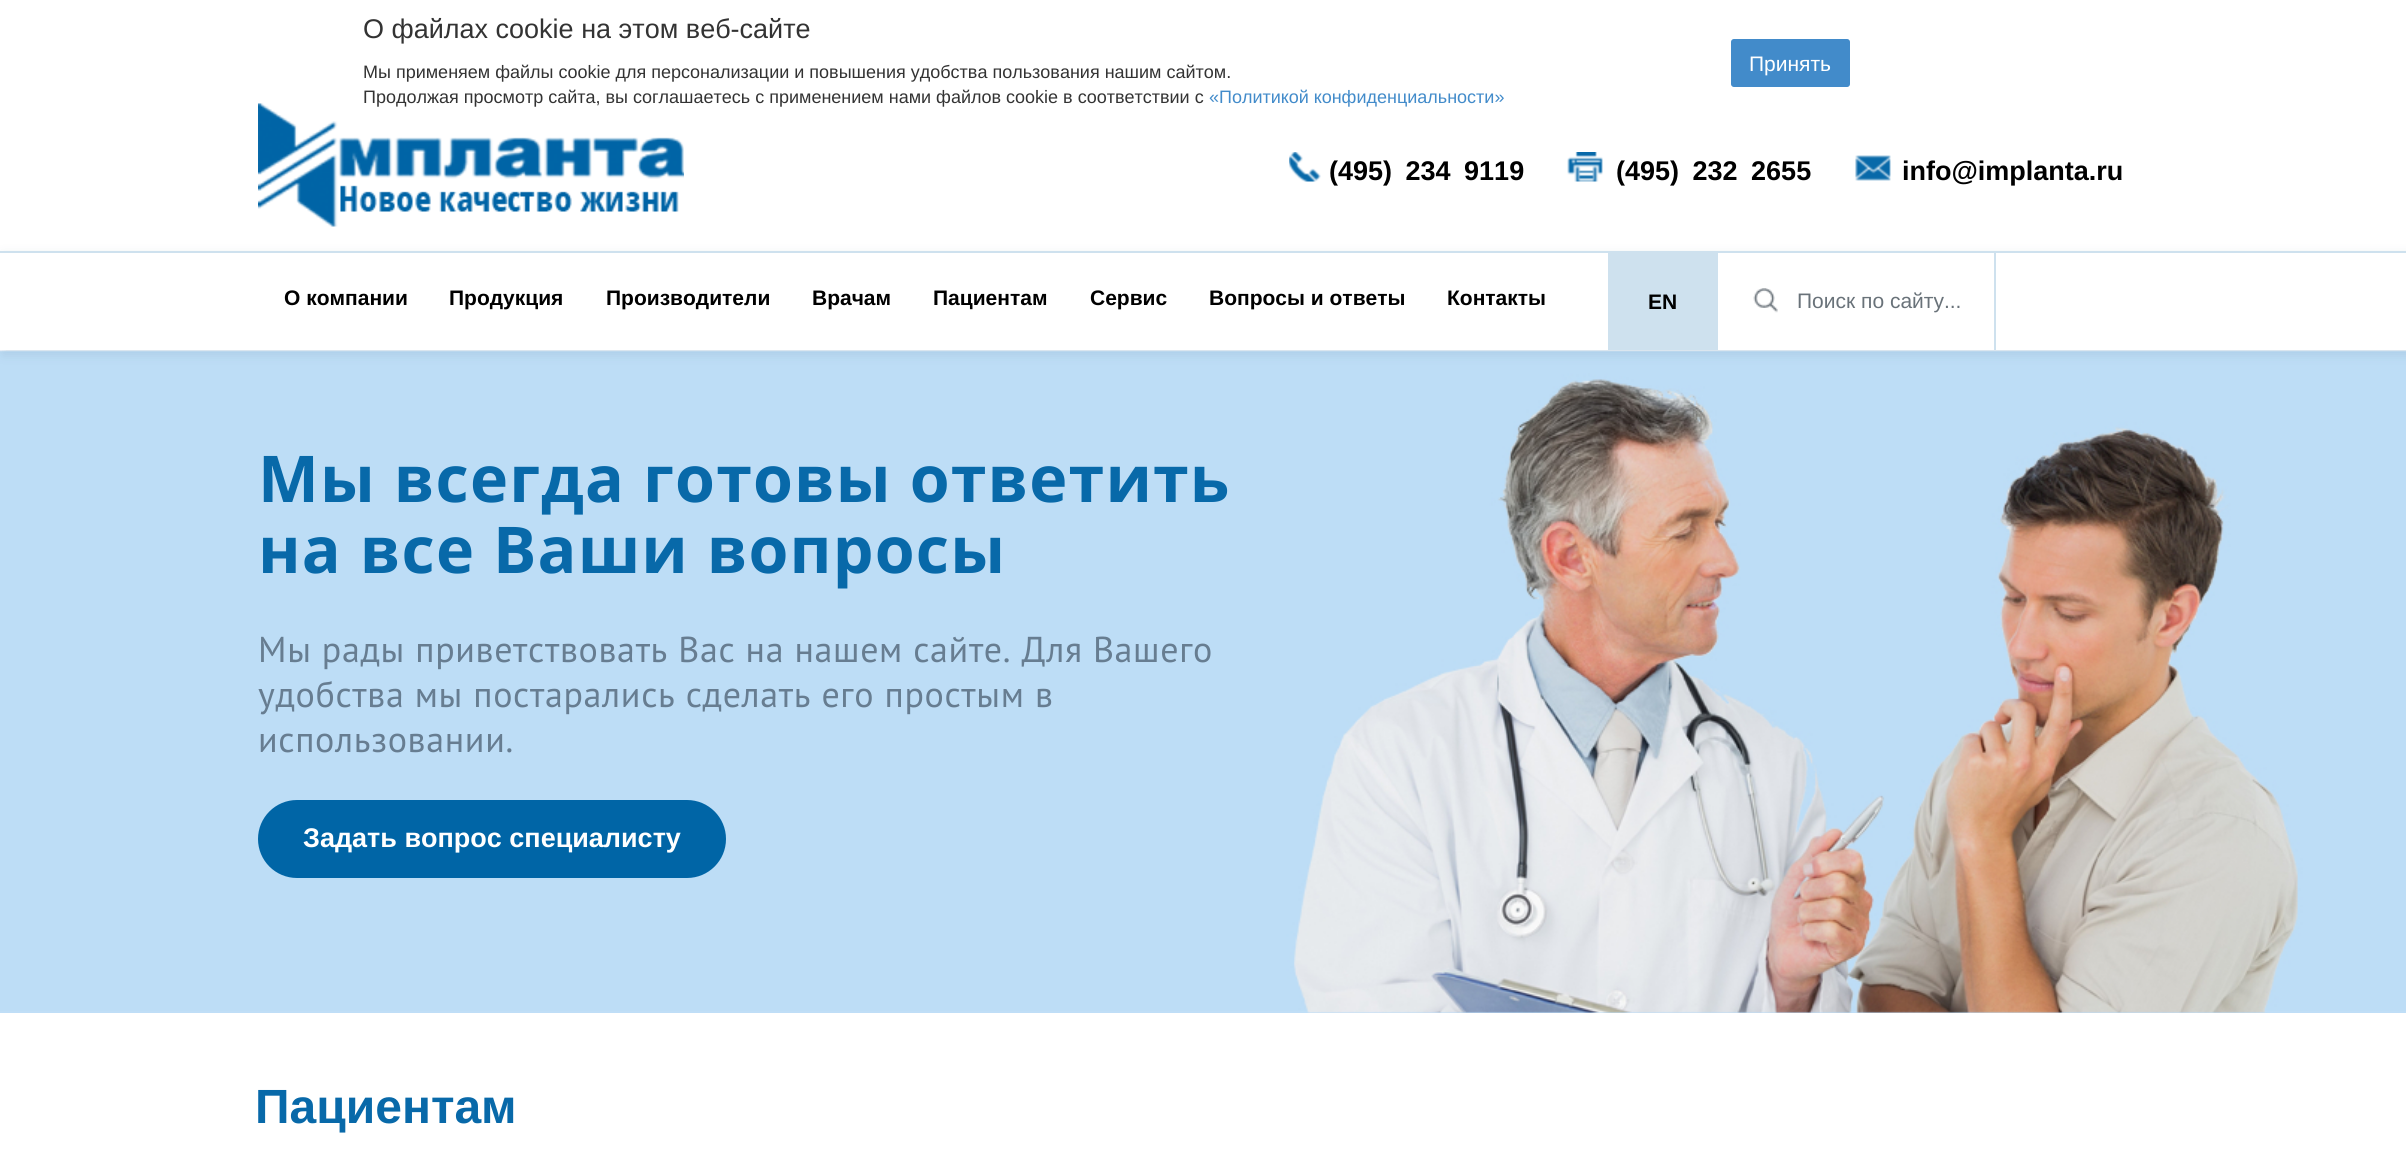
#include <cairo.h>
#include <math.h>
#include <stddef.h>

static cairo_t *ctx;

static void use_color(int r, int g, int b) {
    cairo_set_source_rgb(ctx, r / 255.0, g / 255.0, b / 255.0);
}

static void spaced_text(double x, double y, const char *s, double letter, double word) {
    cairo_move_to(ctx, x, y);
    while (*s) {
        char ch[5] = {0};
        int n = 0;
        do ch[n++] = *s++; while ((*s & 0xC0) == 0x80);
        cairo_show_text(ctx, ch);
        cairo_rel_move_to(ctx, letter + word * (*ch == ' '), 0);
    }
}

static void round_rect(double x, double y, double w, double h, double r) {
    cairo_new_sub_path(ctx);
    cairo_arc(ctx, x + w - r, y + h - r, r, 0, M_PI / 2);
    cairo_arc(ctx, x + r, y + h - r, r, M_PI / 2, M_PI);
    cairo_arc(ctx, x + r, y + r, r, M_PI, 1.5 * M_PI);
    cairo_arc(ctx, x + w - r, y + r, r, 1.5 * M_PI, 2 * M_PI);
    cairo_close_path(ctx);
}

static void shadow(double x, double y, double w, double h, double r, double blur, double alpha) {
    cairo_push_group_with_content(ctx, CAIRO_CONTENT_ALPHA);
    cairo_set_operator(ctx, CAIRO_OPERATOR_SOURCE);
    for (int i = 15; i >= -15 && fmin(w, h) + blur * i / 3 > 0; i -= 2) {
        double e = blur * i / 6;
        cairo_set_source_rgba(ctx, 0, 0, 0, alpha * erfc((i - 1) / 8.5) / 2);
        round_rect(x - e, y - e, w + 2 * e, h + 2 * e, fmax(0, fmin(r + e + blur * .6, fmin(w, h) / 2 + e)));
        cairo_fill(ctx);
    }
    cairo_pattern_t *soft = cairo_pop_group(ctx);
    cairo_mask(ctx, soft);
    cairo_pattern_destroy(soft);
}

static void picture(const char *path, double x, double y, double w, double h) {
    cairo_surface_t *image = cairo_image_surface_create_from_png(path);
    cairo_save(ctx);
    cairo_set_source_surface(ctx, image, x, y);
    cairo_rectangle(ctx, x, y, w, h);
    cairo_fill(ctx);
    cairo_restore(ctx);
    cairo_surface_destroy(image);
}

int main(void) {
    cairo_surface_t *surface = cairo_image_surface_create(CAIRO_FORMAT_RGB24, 2406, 1152);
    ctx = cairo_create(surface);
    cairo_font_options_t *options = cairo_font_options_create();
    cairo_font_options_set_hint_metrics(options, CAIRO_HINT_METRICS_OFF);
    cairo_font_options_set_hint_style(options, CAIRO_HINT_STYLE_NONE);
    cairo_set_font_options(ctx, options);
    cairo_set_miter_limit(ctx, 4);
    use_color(255, 255, 255);
    cairo_paint(ctx);
    cairo_select_font_face(ctx, "Liberation Sans", CAIRO_FONT_SLANT_NORMAL, CAIRO_FONT_WEIGHT_NORMAL);
    cairo_set_font_size(ctx, 27);
    use_color(51, 51, 51);
    cairo_move_to(ctx, 363, 38);
    cairo_show_text(ctx, "О файлах cookie на этом веб-сайте");
    cairo_set_font_size(ctx, 18);
    cairo_move_to(ctx, 363, 78);
    cairo_show_text(ctx, "Мы применяем файлы cookie для персонализации и повышения удобства пользования нашим сайтом.");
    cairo_move_to(ctx, 363, 103);
    cairo_show_text(ctx, "Продолжая просмотр сайта, вы соглашаетесь с применением нами файлов cookie в соответствии с");
    use_color(66, 139, 202);
    cairo_move_to(ctx, 1209, 103);
    cairo_show_text(ctx, "«Политикой конфиденциальности»");
    round_rect(1729.5, 37.5, 122, 51, 4.5);
    cairo_fill_preserve(ctx);
    use_color(255, 255, 255);
    cairo_set_line_width(ctx, 3);
    cairo_stroke(ctx);
    cairo_set_font_size(ctx, 21);
    cairo_move_to(ctx, 1749, 71);
    cairo_show_text(ctx, "Принять");
    picture("img1.png", 258, 103, 426, 124);
    picture("img2.png", 1289, 152, 32, 30);
    cairo_select_font_face(ctx, "Liberation Sans", CAIRO_FONT_SLANT_NORMAL, CAIRO_FONT_WEIGHT_BOLD);
    cairo_set_font_size(ctx, 27);
    use_color(0, 0, 0);
    spaced_text(1329, 180, "(495) 234 9119", 0, 6);
    picture("img3.png", 1567, 152, 36, 30);
    spaced_text(1616, 180, "(495) 232 2655", 0, 6);
    picture("img4.png", 1855, 155, 36, 26);
    cairo_move_to(ctx, 1902, 180);
    cairo_show_text(ctx, "info@implanta.ru");
    use_color(189, 221, 246);
    cairo_rectangle(ctx, 0, 1012, 2406, 1);
    cairo_fill(ctx);
    picture("img6.png", 0, 350, 2406, 663);
    cairo_save(ctx);
    cairo_set_fill_rule(ctx, CAIRO_FILL_RULE_EVEN_ODD);
    cairo_new_path(ctx);
    cairo_move_to(ctx, 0, 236);
    cairo_line_to(ctx, 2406, 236);
    cairo_line_to(ctx, 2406, 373);
    cairo_line_to(ctx, 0, 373);
    cairo_close_path(ctx);
    cairo_move_to(ctx, 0, 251);
    cairo_line_to(ctx, 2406, 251);
    cairo_line_to(ctx, 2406, 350);
    cairo_line_to(ctx, 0, 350);
    cairo_close_path(ctx);
    cairo_clip(ctx);
    use_color(14, 57, 85);
    shadow(3, 255, 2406, 99, 0, 6, 0.11);
    cairo_restore(ctx);
    use_color(206, 225, 238);
    cairo_rectangle(ctx, 0, 251, 2406, 2);
    cairo_fill(ctx);
    cairo_set_font_size(ctx, 21);
    use_color(0, 0, 0);
    cairo_move_to(ctx, 284, 305);
    cairo_show_text(ctx, "О компании");
    cairo_move_to(ctx, 449, 305);
    cairo_show_text(ctx, "Продукция");
    cairo_move_to(ctx, 606, 305);
    cairo_show_text(ctx, "Производители");
    cairo_move_to(ctx, 812, 305);
    cairo_show_text(ctx, "Врачам");
    cairo_move_to(ctx, 933, 305);
    cairo_show_text(ctx, "Пациентам");
    cairo_move_to(ctx, 1090, 305);
    cairo_show_text(ctx, "Сервис");
    cairo_move_to(ctx, 1209, 305);
    cairo_show_text(ctx, "Вопросы и ответы");
    cairo_move_to(ctx, 1447, 305);
    cairo_show_text(ctx, "Контакты");
    use_color(206, 225, 238);
    cairo_rectangle(ctx, 1608, 253, 110, 97);
    cairo_fill(ctx);
    use_color(0, 0, 0);
    cairo_move_to(ctx, 1648, 309);
    cairo_show_text(ctx, "EN");
    picture("img5.png", 1753, 288, 25, 25);
    use_color(206, 225, 238);
    cairo_rectangle(ctx, 1994, 252, 2, 98);
    cairo_fill(ctx);
    cairo_select_font_face(ctx, "Liberation Sans", CAIRO_FONT_SLANT_NORMAL, CAIRO_FONT_WEIGHT_NORMAL);
    use_color(105, 114, 121);
    cairo_move_to(ctx, 1797, 308);
    cairo_show_text(ctx, "Поиск по сайту...");
    cairo_select_font_face(ctx, "Open Sans", CAIRO_FONT_SLANT_NORMAL, CAIRO_FONT_WEIGHT_BOLD);
    cairo_set_font_size(ctx, 64.5);
    use_color(8, 105, 169);
    spaced_text(258, 502, "Мы всегда готовы ответить", 1.15, 0);
    spaced_text(258, 573, "на все Ваши вопросы", 1.15, 0);
    cairo_select_font_face(ctx, "PT Sans", CAIRO_FONT_SLANT_NORMAL, CAIRO_FONT_WEIGHT_NORMAL);
    cairo_set_font_size(ctx, 36);
    use_color(103, 125, 145);
    spaced_text(258, 662, "Мы рады приветствовать Вас на нашем сайте. Для Вашего", 0.65, 0);
    spaced_text(258, 707, "удобства мы постарались сделать его простым в", 0.65, 0);
    spaced_text(258, 752, "использовании.", 0.65, 0);
    use_color(0, 101, 166);
    round_rect(259.5, 801.5, 465, 75, 37.5);
    cairo_fill_preserve(ctx);
    cairo_stroke(ctx);
    cairo_select_font_face(ctx, "Liberation Sans", CAIRO_FONT_SLANT_NORMAL, CAIRO_FONT_WEIGHT_BOLD);
    cairo_set_font_size(ctx, 27);
    use_color(255, 255, 255);
    cairo_move_to(ctx, 303, 847);
    cairo_show_text(ctx, "Задать вопрос специалисту");
    cairo_set_font_size(ctx, 48);
    use_color(8, 105, 169);
    cairo_move_to(ctx, 255, 1123);
    cairo_show_text(ctx, "Пациентам");
    cairo_surface_write_to_png(surface, "result.png");
    cairo_font_options_destroy(options);
    cairo_destroy(ctx);
    cairo_surface_destroy(surface);
    return 0;
}
